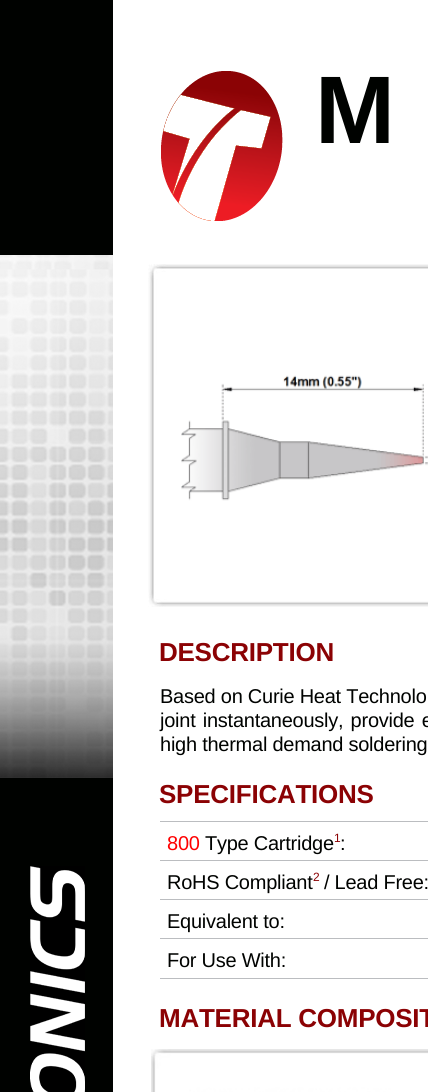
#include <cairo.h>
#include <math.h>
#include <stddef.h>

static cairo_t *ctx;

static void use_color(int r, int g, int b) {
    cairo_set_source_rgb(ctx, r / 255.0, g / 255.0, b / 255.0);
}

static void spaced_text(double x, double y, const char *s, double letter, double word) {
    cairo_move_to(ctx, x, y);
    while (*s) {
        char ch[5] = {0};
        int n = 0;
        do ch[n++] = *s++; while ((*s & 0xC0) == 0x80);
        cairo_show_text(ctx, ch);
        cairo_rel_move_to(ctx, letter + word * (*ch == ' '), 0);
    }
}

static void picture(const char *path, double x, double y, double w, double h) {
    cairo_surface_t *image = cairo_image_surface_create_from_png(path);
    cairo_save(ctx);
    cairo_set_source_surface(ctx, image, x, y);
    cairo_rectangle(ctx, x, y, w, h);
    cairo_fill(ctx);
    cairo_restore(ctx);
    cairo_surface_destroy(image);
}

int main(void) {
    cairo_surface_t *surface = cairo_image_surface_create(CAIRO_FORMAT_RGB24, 428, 1092);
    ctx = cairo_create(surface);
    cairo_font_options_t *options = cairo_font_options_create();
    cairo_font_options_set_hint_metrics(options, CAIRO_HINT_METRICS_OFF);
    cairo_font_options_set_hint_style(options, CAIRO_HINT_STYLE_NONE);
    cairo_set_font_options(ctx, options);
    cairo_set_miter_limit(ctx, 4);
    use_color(255, 255, 255);
    cairo_paint(ctx);
    use_color(0, 2, 0);
    cairo_rectangle(ctx, 0, 0, 113, 255);
    cairo_fill(ctx);
    picture("img1.png", 161, 71, 122, 150);
    cairo_select_font_face(ctx, "Liberation Sans", CAIRO_FONT_SLANT_NORMAL, CAIRO_FONT_WEIGHT_BOLD);
    cairo_set_font_size(ctx, 96);
    spaced_text(315, 143, "M", -0.25, 0);
    picture("img2.png", 0, 255, 113, 523);
    picture("img3.png", 148, 264, 280, 343);
    picture("img4.png", 156, 375, 272, 224);
    cairo_set_font_size(ctx, 26);
    use_color(139, 2, 4);
    spaced_text(159, 661, "DESCRIPTION", -0.25, 0);
    cairo_select_font_face(ctx, "Liberation Sans", CAIRO_FONT_SLANT_NORMAL, CAIRO_FONT_WEIGHT_NORMAL);
    cairo_set_font_size(ctx, 20);
    use_color(0, 2, 0);
    spaced_text(160, 703, "Based on Curie Heat Technolo", -0.25, 0);
    spaced_text(160, 727, "joint instantaneously, provide e", -0.25, 2);
    spaced_text(160, 751, "high thermal demand soldering", -0.25, 0);
    cairo_rectangle(ctx, 0, 778, 113, 314);
    cairo_fill(ctx);
    cairo_select_font_face(ctx, "Liberation Sans", CAIRO_FONT_SLANT_NORMAL, CAIRO_FONT_WEIGHT_BOLD);
    cairo_set_font_size(ctx, 26);
    use_color(139, 2, 4);
    spaced_text(159, 803, "SPECIFICATIONS", -0.25, 0);
    picture("img5.png", 30, 866, 55, 226);
    use_color(187, 189, 192);
    cairo_rectangle(ctx, 160, 821, 268, 1);
    cairo_fill(ctx);
    cairo_select_font_face(ctx, "Liberation Sans", CAIRO_FONT_SLANT_NORMAL, CAIRO_FONT_WEIGHT_NORMAL);
    cairo_set_font_size(ctx, 20);
    use_color(255, 0, 0);
    spaced_text(167, 850, "800", -0.25, 0);
    use_color(0, 2, 0);
    spaced_text(205, 850, "Type Cartridge", -0.25, 0);
    cairo_set_font_size(ctx, 12);
    use_color(139, 2, 4);
    spaced_text(334, 842, "1", -0.25, 0);
    cairo_set_font_size(ctx, 20);
    use_color(0, 2, 0);
    spaced_text(340, 850, ":", -0.25, 0);
    use_color(187, 189, 192);
    cairo_rectangle(ctx, 160, 860, 268, 1);
    cairo_fill(ctx);
    use_color(0, 2, 0);
    spaced_text(167, 889, "RoHS Compliant", -0.25, 0);
    cairo_set_font_size(ctx, 12);
    use_color(139, 2, 4);
    spaced_text(313, 881, "2", -0.25, 0);
    cairo_set_font_size(ctx, 20);
    use_color(0, 2, 0);
    spaced_text(324, 889, "/ Lead Free:", -0.25, 0);
    use_color(187, 189, 192);
    cairo_rectangle(ctx, 160, 899, 268, 1);
    cairo_fill(ctx);
    use_color(0, 2, 0);
    spaced_text(167, 928, "Equivalent to:", -0.25, 0);
    use_color(187, 189, 192);
    cairo_rectangle(ctx, 160, 938, 268, 1);
    cairo_fill(ctx);
    cairo_rectangle(ctx, 160, 978, 268, 1);
    cairo_fill(ctx);
    use_color(0, 2, 0);
    spaced_text(167, 967, "For Use With:", -0.25, 0);
    cairo_select_font_face(ctx, "Liberation Sans", CAIRO_FONT_SLANT_NORMAL, CAIRO_FONT_WEIGHT_BOLD);
    cairo_set_font_size(ctx, 26);
    use_color(139, 2, 4);
    spaced_text(159, 1027, "MATERIAL COMPOSIT", -0.25, 0);
    picture("img6.png", 151, 1049, 277, 43);
    cairo_surface_write_to_png(surface, "result.png");
    cairo_font_options_destroy(options);
    cairo_destroy(ctx);
    cairo_surface_destroy(surface);
    return 0;
}
